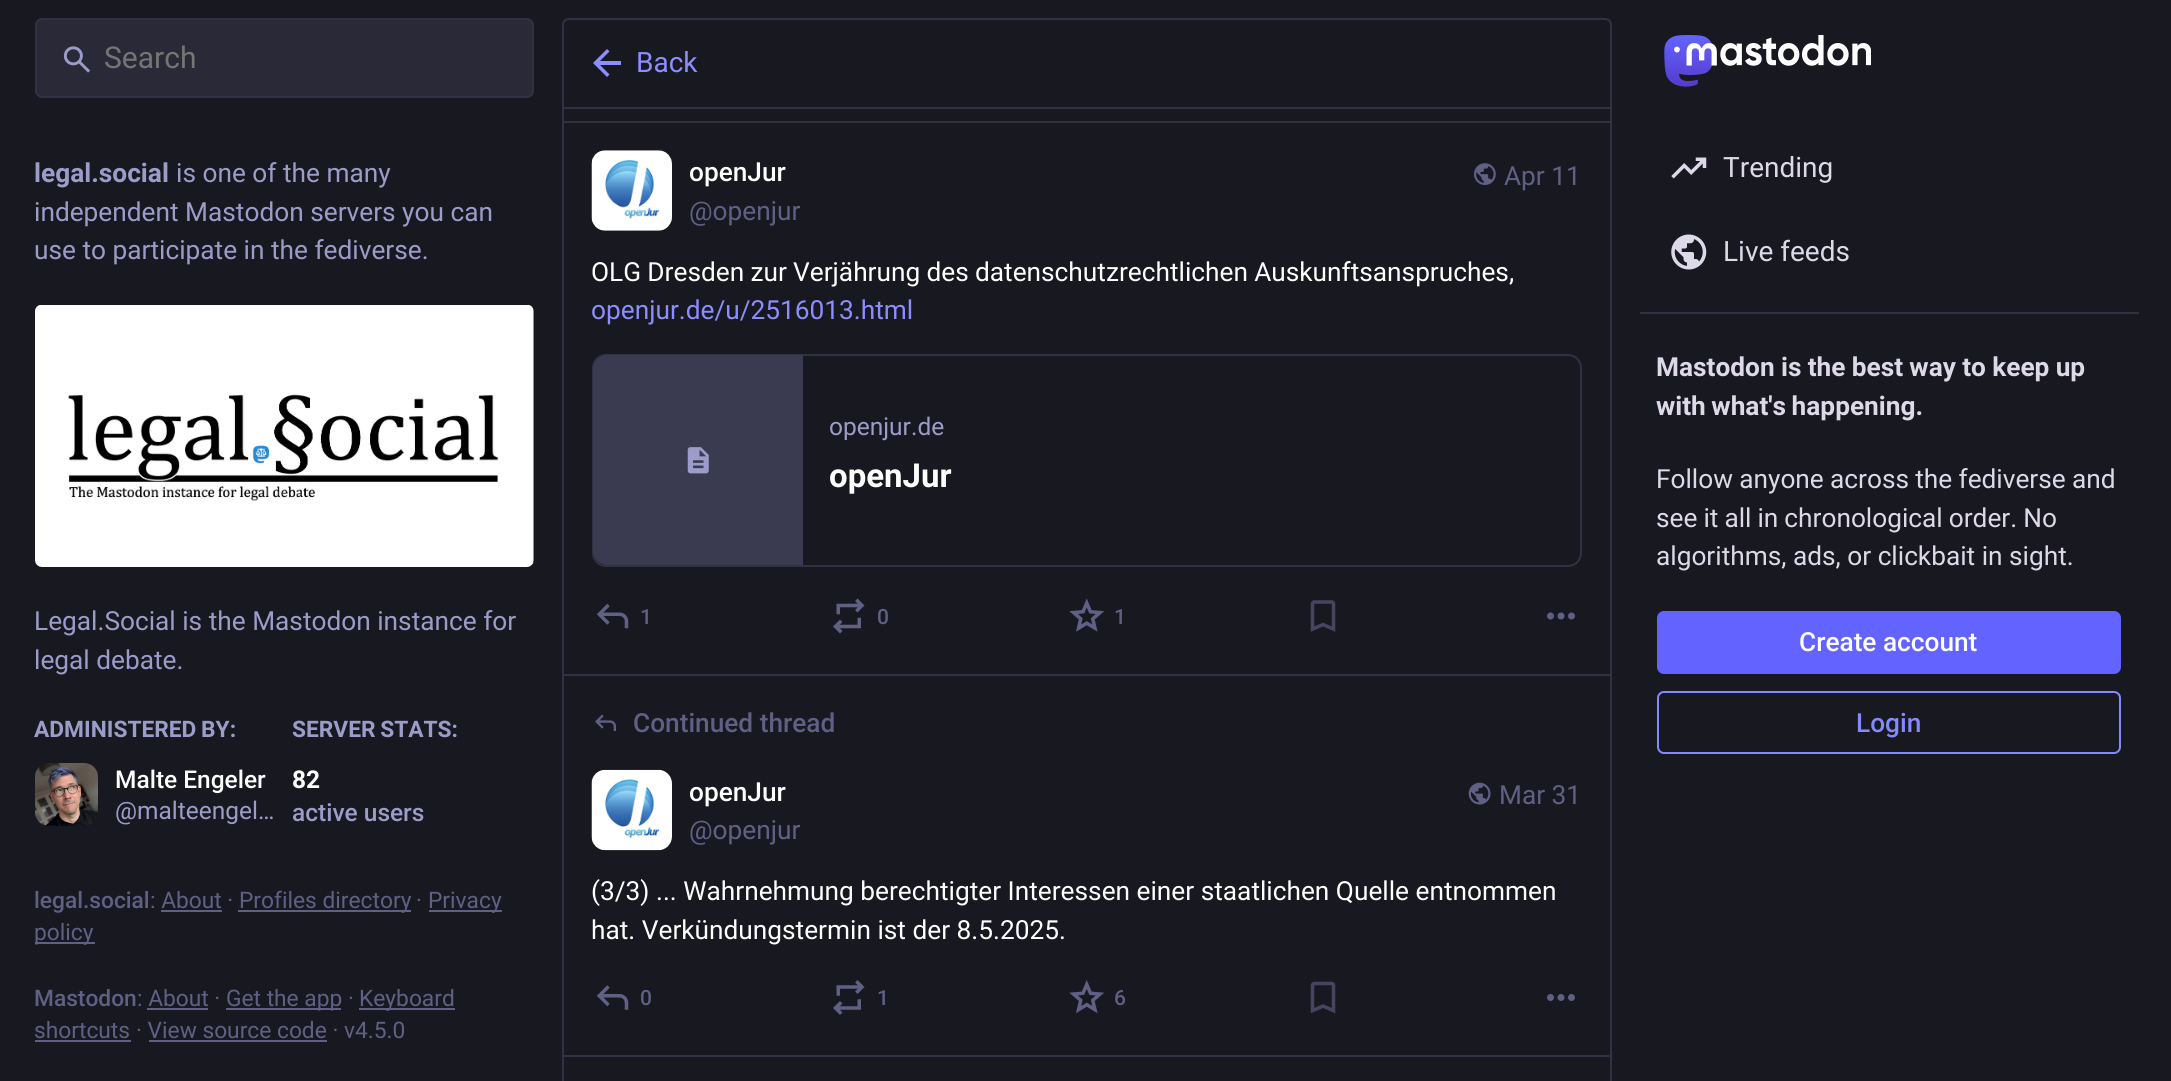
#include <cairo.h>
#include <math.h>
#include <stddef.h>

static cairo_t *ctx;

static void use_color(int r, int g, int b) {
    cairo_set_source_rgb(ctx, r / 255.0, g / 255.0, b / 255.0);
}

static void spaced_text(double x, double y, const char *s, double letter, double word) {
    cairo_move_to(ctx, x, y);
    while (*s) {
        char ch[5] = {0};
        int n = 0;
        do ch[n++] = *s++; while ((*s & 0xC0) == 0x80);
        cairo_show_text(ctx, ch);
        cairo_rel_move_to(ctx, letter + word * (*ch == ' '), 0);
    }
}

static void round_rect(double x, double y, double w, double h, double r) {
    cairo_new_sub_path(ctx);
    cairo_arc(ctx, x + w - r, y + h - r, r, 0, M_PI / 2);
    cairo_arc(ctx, x + r, y + h - r, r, M_PI / 2, M_PI);
    cairo_arc(ctx, x + r, y + r, r, M_PI, 1.5 * M_PI);
    cairo_arc(ctx, x + w - r, y + r, r, 1.5 * M_PI, 2 * M_PI);
    cairo_close_path(ctx);
}

static void picture(const char *path, double x, double y, double w, double h) {
    cairo_surface_t *image = cairo_image_surface_create_from_png(path);
    cairo_save(ctx);
    cairo_set_source_surface(ctx, image, x, y);
    cairo_rectangle(ctx, x, y, w, h);
    cairo_fill(ctx);
    cairo_restore(ctx);
    cairo_surface_destroy(image);
}

int main(void) {
    cairo_surface_t *surface = cairo_image_surface_create(CAIRO_FORMAT_RGB24, 2171, 1081);
    ctx = cairo_create(surface);
    cairo_font_options_t *options = cairo_font_options_create();
    cairo_font_options_set_hint_metrics(options, CAIRO_HINT_METRICS_OFF);
    cairo_font_options_set_hint_style(options, CAIRO_HINT_STYLE_NONE);
    cairo_set_font_options(ctx, options);
    cairo_set_miter_limit(ctx, 4);
    use_color(24, 24, 33);
    cairo_paint(ctx);
    use_color(41, 41, 56);
    round_rect(36, 19, 497, 78, 6);
    cairo_fill_preserve(ctx);
    use_color(49, 49, 68);
    cairo_stroke(ctx);
    picture("img1.png", 63, 46, 27, 27);
    cairo_select_font_face(ctx, "Roboto", CAIRO_FONT_SLANT_NORMAL, CAIRO_FONT_WEIGHT_NORMAL);
    cairo_set_font_size(ctx, 30);
    use_color(117, 117, 117);
    cairo_move_to(ctx, 104, 68);
    cairo_show_text(ctx, "Search");
    cairo_select_font_face(ctx, "Roboto", CAIRO_FONT_SLANT_NORMAL, CAIRO_FONT_WEIGHT_BOLD);
    cairo_set_font_size(ctx, 26.25);
    use_color(156, 156, 201);
    cairo_move_to(ctx, 34, 182);
    cairo_show_text(ctx, "legal.social");
    cairo_select_font_face(ctx, "Roboto", CAIRO_FONT_SLANT_NORMAL, CAIRO_FONT_WEIGHT_NORMAL);
    cairo_move_to(ctx, 176, 182);
    cairo_show_text(ctx, "is one of the many");
    cairo_move_to(ctx, 34, 221);
    cairo_show_text(ctx, "independent Mastodon servers you can");
    cairo_move_to(ctx, 34, 259);
    cairo_show_text(ctx, "use to participate in the fediverse.");
    use_color(41, 41, 56);
    round_rect(35, 305, 499, 262, 7);
    cairo_fill(ctx);
    picture("img2.png", 35, 305, 499, 262);
    use_color(156, 156, 201);
    cairo_move_to(ctx, 34, 630);
    cairo_show_text(ctx, "Legal.Social is the Mastodon instance for");
    cairo_move_to(ctx, 34, 669);
    cairo_show_text(ctx, "legal debate.");
    cairo_select_font_face(ctx, "Roboto", CAIRO_FONT_SLANT_NORMAL, CAIRO_FONT_WEIGHT_BOLD);
    cairo_set_font_size(ctx, 22.75);
    spaced_text(34, 737, "ADMINISTERED BY:", 0, -1);
    picture("img3.png", 35, 763, 63, 63);
    cairo_select_font_face(ctx, "Roboto Medium", CAIRO_FONT_SLANT_NORMAL, CAIRO_FONT_WEIGHT_NORMAL);
    cairo_set_font_size(ctx, 24.5);
    use_color(255, 255, 255);
    cairo_move_to(ctx, 115, 788);
    cairo_show_text(ctx, "Malte Engeler");
    cairo_select_font_face(ctx, "Roboto", CAIRO_FONT_SLANT_NORMAL, CAIRO_FONT_WEIGHT_NORMAL);
    use_color(156, 156, 201);
    cairo_move_to(ctx, 115, 819);
    cairo_show_text(ctx, "@malteengel…");
    cairo_select_font_face(ctx, "Roboto", CAIRO_FONT_SLANT_NORMAL, CAIRO_FONT_WEIGHT_BOLD);
    cairo_set_font_size(ctx, 22.75);
    spaced_text(292, 737, "SERVER STATS:", 0, -1);
    cairo_set_font_size(ctx, 24.5);
    use_color(255, 255, 255);
    cairo_move_to(ctx, 292, 788);
    cairo_show_text(ctx, "82");
    cairo_select_font_face(ctx, "Roboto Medium", CAIRO_FONT_SLANT_NORMAL, CAIRO_FONT_WEIGHT_NORMAL);
    use_color(156, 156, 201);
    cairo_move_to(ctx, 292, 821);
    cairo_show_text(ctx, "active users");
    cairo_set_font_size(ctx, 22.75);
    use_color(96, 96, 133);
    cairo_move_to(ctx, 34, 908);
    cairo_show_text(ctx, "legal.social");
    cairo_select_font_face(ctx, "Roboto", CAIRO_FONT_SLANT_NORMAL, CAIRO_FONT_WEIGHT_NORMAL);
    cairo_move_to(ctx, 150, 908);
    cairo_show_text(ctx, ": About ·");
    cairo_rectangle(ctx, 238, 910, 173, 2);
    cairo_fill(ctx);
    cairo_move_to(ctx, 239, 908);
    cairo_show_text(ctx, "Profiles directory");
    cairo_move_to(ctx, 416, 908);
    cairo_show_text(ctx, "·");
    cairo_rectangle(ctx, 429, 910, 73, 2);
    cairo_fill(ctx);
    cairo_move_to(ctx, 428, 908);
    cairo_show_text(ctx, "Privacy");
    cairo_rectangle(ctx, 161, 910, 61, 2);
    cairo_fill(ctx);
    cairo_rectangle(ctx, 35, 942, 60, 2);
    cairo_fill(ctx);
    cairo_move_to(ctx, 34, 940);
    cairo_show_text(ctx, "policy");
    cairo_select_font_face(ctx, "Roboto Medium", CAIRO_FONT_SLANT_NORMAL, CAIRO_FONT_WEIGHT_NORMAL);
    cairo_move_to(ctx, 34, 1006);
    cairo_show_text(ctx, "Mastodon");
    cairo_select_font_face(ctx, "Roboto", CAIRO_FONT_SLANT_NORMAL, CAIRO_FONT_WEIGHT_NORMAL);
    cairo_move_to(ctx, 137, 1006);
    cairo_show_text(ctx, ": About ·");
    cairo_rectangle(ctx, 226, 1008, 115, 2);
    cairo_fill(ctx);
    cairo_move_to(ctx, 226, 1006);
    cairo_show_text(ctx, "Get the app ·");
    cairo_rectangle(ctx, 359, 1008, 96, 2);
    cairo_fill(ctx);
    cairo_move_to(ctx, 359, 1006);
    cairo_show_text(ctx, "Keyboard");
    cairo_rectangle(ctx, 147, 1008, 61, 2);
    cairo_fill(ctx);
    cairo_move_to(ctx, 34, 1038);
    cairo_show_text(ctx, "shortcuts");
    cairo_rectangle(ctx, 35, 1040, 96, 2);
    cairo_fill(ctx);
    cairo_move_to(ctx, 136, 1038);
    cairo_show_text(ctx, "· View source code · v4.5.0");
    cairo_rectangle(ctx, 149, 1040, 178, 2);
    cairo_fill(ctx);
    use_color(49, 49, 68);
    cairo_set_fill_rule(ctx, CAIRO_FILL_RULE_EVEN_ODD);
    cairo_new_path(ctx);
    cairo_move_to(ctx, 562, -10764);
    cairo_line_to(ctx, 1612, -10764);
    cairo_line_to(ctx, 1612, 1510);
    cairo_curve_to(ctx, 1612, 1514, 1609, 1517, 1605, 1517);
    cairo_line_to(ctx, 569, 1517);
    cairo_curve_to(ctx, 565, 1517, 562, 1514, 562, 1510);
    cairo_close_path(ctx);
    cairo_move_to(ctx, 564, -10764);
    cairo_line_to(ctx, 1610, -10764);
    cairo_line_to(ctx, 1610, 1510);
    cairo_curve_to(ctx, 1610, 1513, 1608, 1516, 1605, 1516);
    cairo_line_to(ctx, 569, 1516);
    cairo_curve_to(ctx, 566, 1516, 564, 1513, 564, 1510);
    cairo_close_path(ctx);
    cairo_fill(ctx);
    use_color(24, 24, 33);
    cairo_rectangle(ctx, 562, 0, 1050, 107);
    cairo_fill(ctx);
    cairo_new_path(ctx);
    cairo_move_to(ctx, 569, 19);
    cairo_line_to(ctx, 1605, 19);
    cairo_curve_to(ctx, 1608.5, 19, 1611, 21.5, 1611, 25);
    cairo_line_to(ctx, 1611, 108);
    cairo_line_to(ctx, 563, 108);
    cairo_line_to(ctx, 563, 25);
    cairo_curve_to(ctx, 563, 21.5, 565.5, 19, 569, 19);
    cairo_close_path(ctx);
    use_color(49, 49, 68);
    cairo_stroke(ctx);
    use_color(140, 141, 255);
    cairo_set_fill_rule(ctx, CAIRO_FILL_RULE_WINDING);
    cairo_new_path(ctx);
    cairo_move_to(ctx, 600, 65);
    cairo_line_to(ctx, 609.5, 74.5);
    cairo_line_to(ctx, 607, 77);
    cairo_line_to(ctx, 593, 63);
    cairo_line_to(ctx, 607, 49);
    cairo_line_to(ctx, 609.5, 51.5);
    cairo_line_to(ctx, 600, 61);
    cairo_line_to(ctx, 621, 61);
    cairo_line_to(ctx, 621, 65);
    cairo_close_path(ctx);
    cairo_fill(ctx);
    cairo_set_font_size(ctx, 28);
    cairo_move_to(ctx, 636, 72);
    cairo_show_text(ctx, "Back");
    use_color(49, 49, 68);
    cairo_rectangle(ctx, 564, 121, 1046, 2);
    cairo_fill(ctx);
    cairo_rectangle(ctx, 564, 674, 1046, 2);
    cairo_fill(ctx);
    use_color(32, 32, 44);
    round_rect(592, 151, 80, 80, 14);
    cairo_fill(ctx);
    picture("img4.png", 591, 150, 81, 81);
    cairo_save(ctx);
    cairo_rectangle(ctx, 690, 152, 110, 77);
    cairo_clip(ctx);
    cairo_select_font_face(ctx, "Roboto Medium", CAIRO_FONT_SLANT_NORMAL, CAIRO_FONT_WEIGHT_NORMAL);
    cairo_set_font_size(ctx, 26.25);
    use_color(255, 255, 255);
    cairo_move_to(ctx, 689, 181);
    cairo_show_text(ctx, "openJur");
    cairo_restore(ctx);
    cairo_set_font_size(ctx, 26.25);
    use_color(96, 96, 133);
    cairo_move_to(ctx, 689, 220);
    cairo_show_text(ctx, "@openjur");
    picture("img5.png", 1474, 163, 22, 22);
    cairo_move_to(ctx, 1504, 185);
    cairo_show_text(ctx, "Apr 11");
    use_color(255, 255, 255);
    spaced_text(591, 281, "OLG Dresden zur Verjährung des datenschutzrechtlichen Auskunftsanspruches,", 0, -0.25);
    cairo_save(ctx);
    cairo_rectangle(ctx, 592, 249, 990, 80);
    cairo_clip(ctx);
    use_color(140, 141, 255);
    cairo_move_to(ctx, 591, 319);
    cairo_show_text(ctx, "openjur.de/u/2516013.html");
    cairo_restore(ctx);
    round_rect(593, 355, 988, 211, 13);
    use_color(49, 49, 68);
    cairo_stroke(ctx);
    cairo_save(ctx);
    round_rect(593, 355, 987, 210, 12);
    cairo_clip(ctx);
    use_color(58, 58, 80);
    cairo_new_path(ctx);
    cairo_move_to(ctx, 607, 355);
    cairo_line_to(ctx, 803, 355);
    cairo_line_to(ctx, 803, 565);
    cairo_line_to(ctx, 607, 565);
    cairo_curve_to(ctx, 599.5, 565, 593, 558.5, 593, 551);
    cairo_line_to(ctx, 593, 369);
    cairo_curve_to(ctx, 593, 361.5, 599.5, 355, 607, 355);
    cairo_close_path(ctx);
    cairo_fill(ctx);
    cairo_restore(ctx);
    picture("img6.png", 687, 447, 22, 27);
    cairo_save(ctx);
    cairo_rectangle(ctx, 830, 410, 724, 31);
    cairo_clip(ctx);
    cairo_set_font_size(ctx, 24.5);
    use_color(156, 156, 201);
    cairo_move_to(ctx, 829, 435);
    cairo_show_text(ctx, "openjur.de");
    cairo_restore(ctx);
    cairo_save(ctx);
    cairo_rectangle(ctx, 830, 455, 724, 42);
    cairo_clip(ctx);
    cairo_select_font_face(ctx, "Roboto", CAIRO_FONT_SLANT_NORMAL, CAIRO_FONT_WEIGHT_BOLD);
    cairo_set_font_size(ctx, 33);
    use_color(255, 255, 255);
    cairo_move_to(ctx, 829, 487);
    cairo_show_text(ctx, "openJur");
    cairo_restore(ctx);
    picture("img7.png", 596, 603, 33, 26);
    cairo_select_font_face(ctx, "Roboto Medium", CAIRO_FONT_SLANT_NORMAL, CAIRO_FONT_WEIGHT_NORMAL);
    cairo_set_font_size(ctx, 21);
    use_color(96, 96, 133);
    cairo_move_to(ctx, 640, 624);
    cairo_show_text(ctx, "1");
    picture("img8.png", 833, 598, 32, 36);
    cairo_move_to(ctx, 877, 624);
    cairo_show_text(ctx, "0");
    picture("img9.png", 1069, 598, 35, 34);
    cairo_move_to(ctx, 1114, 624);
    cairo_show_text(ctx, "1");
    picture("img10.png", 1310, 600, 26, 32);
    picture("img11.png", 1547, 612, 28, 8);
    picture("img12.png", 595, 714, 21, 17);
    cairo_set_font_size(ctx, 26.25);
    cairo_move_to(ctx, 633, 732);
    cairo_show_text(ctx, "Continued thread");
    use_color(49, 49, 68);
    cairo_rectangle(ctx, 564, 1055, 1046, 2);
    cairo_fill(ctx);
    use_color(32, 32, 44);
    round_rect(592, 770, 80, 81, 14);
    cairo_fill(ctx);
    picture("img13.png", 591, 769, 81, 82);
    cairo_save(ctx);
    cairo_rectangle(ctx, 690, 772, 110, 77);
    cairo_clip(ctx);
    use_color(255, 255, 255);
    cairo_move_to(ctx, 689, 801);
    cairo_show_text(ctx, "openJur");
    cairo_restore(ctx);
    cairo_select_font_face(ctx, "Roboto", CAIRO_FONT_SLANT_NORMAL, CAIRO_FONT_WEIGHT_NORMAL);
    use_color(96, 96, 133);
    cairo_move_to(ctx, 689, 839);
    cairo_show_text(ctx, "@openjur");
    picture("img14.png", 1468, 782, 23, 23);
    cairo_move_to(ctx, 1499, 804);
    cairo_show_text(ctx, "Mar 31");
    use_color(255, 255, 255);
    cairo_move_to(ctx, 591, 900);
    cairo_show_text(ctx, "(3/3) ... Wahrnehmung berechtigter Interessen einer staatlichen Quelle entnommen");
    cairo_move_to(ctx, 591, 939);
    cairo_show_text(ctx, "hat. Verkündungstermin ist der 8.5.2025.");
    picture("img15.png", 596, 985, 33, 25);
    cairo_save(ctx);
    cairo_rectangle(ctx, 641, 985, 10, 25);
    cairo_clip(ctx);
    cairo_select_font_face(ctx, "Roboto Medium", CAIRO_FONT_SLANT_NORMAL, CAIRO_FONT_WEIGHT_NORMAL);
    cairo_set_font_size(ctx, 21);
    use_color(96, 96, 133);
    cairo_move_to(ctx, 640, 1005);
    cairo_show_text(ctx, "0");
    cairo_restore(ctx);
    picture("img16.png", 833, 980, 32, 35);
    cairo_select_font_face(ctx, "Roboto Medium", CAIRO_FONT_SLANT_NORMAL, CAIRO_FONT_WEIGHT_NORMAL);
    cairo_set_font_size(ctx, 21);
    use_color(96, 96, 133);
    cairo_move_to(ctx, 877, 1005);
    cairo_show_text(ctx, "1");
    picture("img17.png", 1069, 980, 35, 34);
    cairo_move_to(ctx, 1114, 1005);
    cairo_show_text(ctx, "6");
    picture("img18.png", 1310, 981, 26, 32);
    picture("img19.png", 1547, 994, 28, 7);
    picture("img20.png", 1664, 35, 207, 52);
    picture("img21.png", 1671, 157, 36, 22);
    cairo_select_font_face(ctx, "Roboto", CAIRO_FONT_SLANT_NORMAL, CAIRO_FONT_WEIGHT_NORMAL);
    cairo_set_font_size(ctx, 28);
    use_color(221, 217, 232);
    cairo_move_to(ctx, 1723, 177);
    cairo_show_text(ctx, "Trending");
    picture("img22.png", 1671, 234, 36, 36);
    cairo_move_to(ctx, 1723, 261);
    cairo_show_text(ctx, "Live feeds");
    use_color(49, 49, 68);
    cairo_rectangle(ctx, 1640, 312, 499, 2);
    cairo_fill(ctx);
    cairo_select_font_face(ctx, "Roboto", CAIRO_FONT_SLANT_NORMAL, CAIRO_FONT_WEIGHT_BOLD);
    cairo_set_font_size(ctx, 26.25);
    use_color(221, 217, 232);
    spaced_text(1656, 376, "Mastodon is the best way to keep up", 0, -0.25);
    spaced_text(1656, 415, "with what's happening.", 0, -1);
    cairo_select_font_face(ctx, "Roboto", CAIRO_FONT_SLANT_NORMAL, CAIRO_FONT_WEIGHT_NORMAL);
    spaced_text(1656, 488, "Follow anyone across the fediverse and", 0, -0.25);
    spaced_text(1656, 527, "see it all in chronological order. No", 0, -0.5);
    cairo_move_to(ctx, 1656, 565);
    cairo_show_text(ctx, "algorithms, ads, or clickbait in sight.");
    use_color(99, 100, 255);
    round_rect(1657, 611, 464, 63, 7);
    cairo_fill(ctx);
    cairo_select_font_face(ctx, "Roboto Medium", CAIRO_FONT_SLANT_NORMAL, CAIRO_FONT_WEIGHT_NORMAL);
    use_color(255, 255, 255);
    cairo_move_to(ctx, 1799, 651);
    cairo_show_text(ctx, "Create account");
    round_rect(1658, 692, 462, 61, 6);
    use_color(133, 138, 250);
    cairo_stroke(ctx);
    cairo_move_to(ctx, 1856, 732);
    cairo_show_text(ctx, "Login");
    cairo_surface_write_to_png(surface, "result.png");
    cairo_font_options_destroy(options);
    cairo_destroy(ctx);
    cairo_surface_destroy(surface);
    return 0;
}
